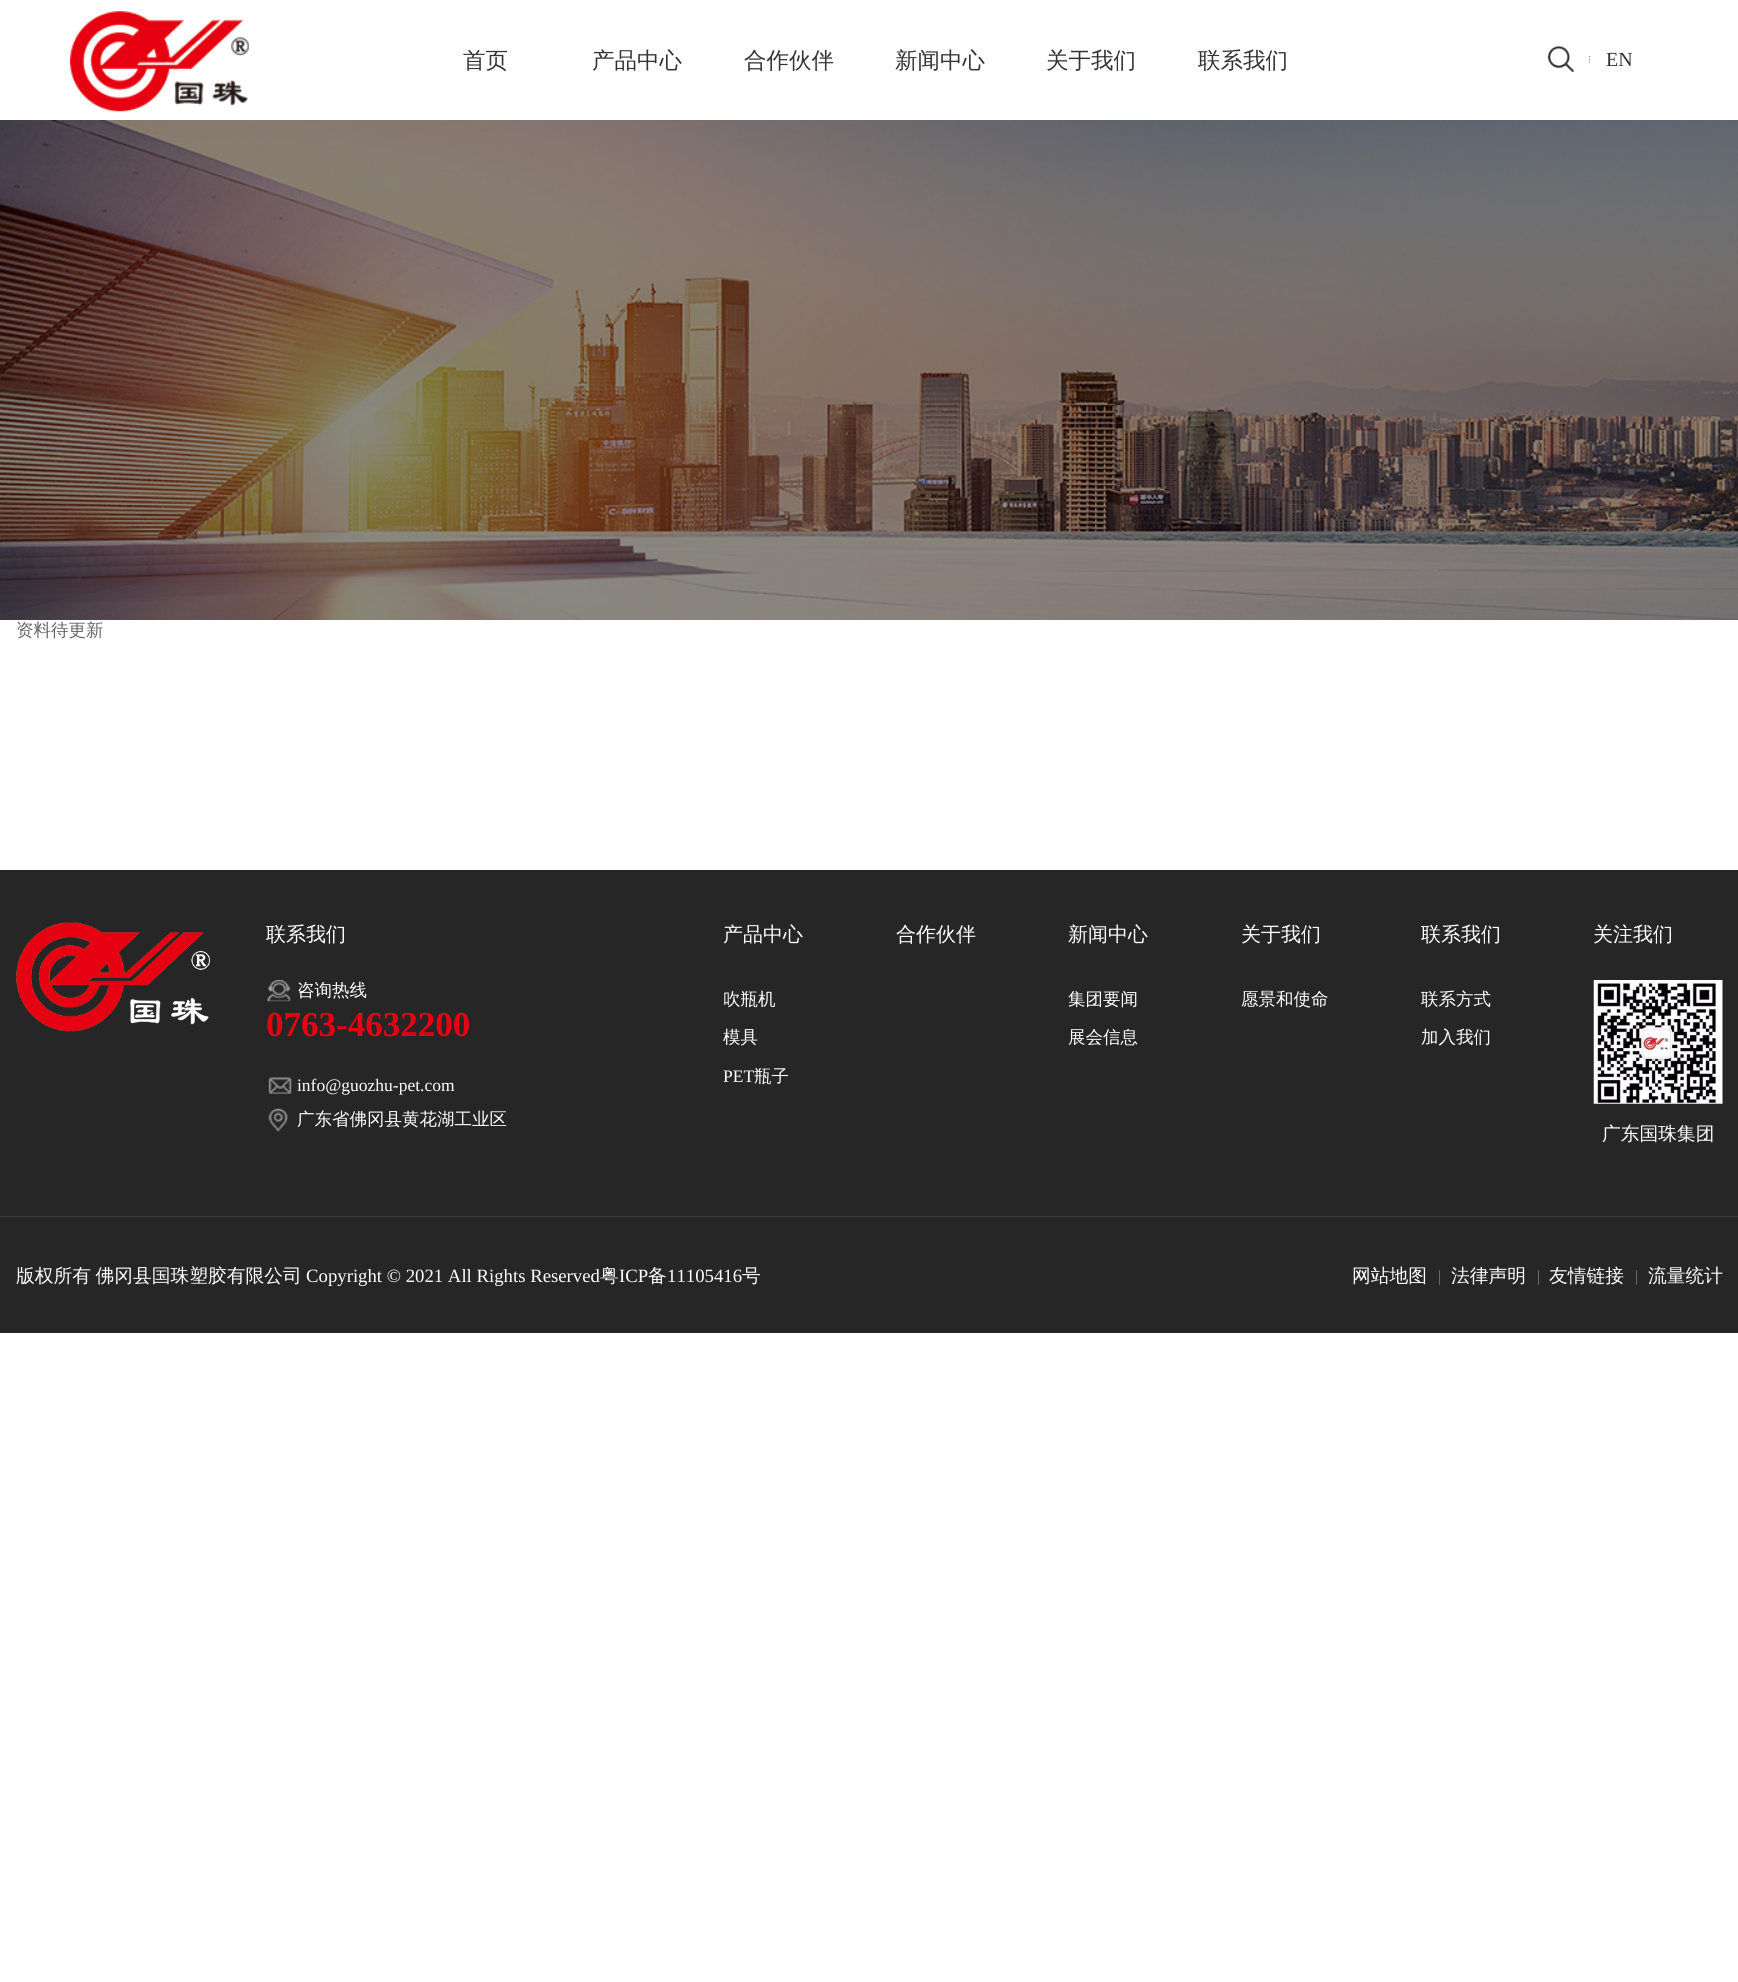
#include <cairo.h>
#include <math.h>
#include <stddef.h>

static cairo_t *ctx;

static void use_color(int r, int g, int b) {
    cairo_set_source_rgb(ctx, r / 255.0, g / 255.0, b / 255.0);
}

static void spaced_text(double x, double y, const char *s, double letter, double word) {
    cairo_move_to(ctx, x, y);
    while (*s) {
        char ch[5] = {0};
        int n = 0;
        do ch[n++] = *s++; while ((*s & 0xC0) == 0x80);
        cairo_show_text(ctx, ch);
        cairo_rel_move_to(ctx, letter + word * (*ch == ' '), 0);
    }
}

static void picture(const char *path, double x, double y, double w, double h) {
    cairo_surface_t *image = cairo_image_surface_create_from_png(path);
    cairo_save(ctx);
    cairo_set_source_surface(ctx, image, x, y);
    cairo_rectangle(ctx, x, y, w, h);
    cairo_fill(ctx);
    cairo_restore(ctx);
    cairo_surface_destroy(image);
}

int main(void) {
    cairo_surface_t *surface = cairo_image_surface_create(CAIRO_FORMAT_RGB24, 1738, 1982);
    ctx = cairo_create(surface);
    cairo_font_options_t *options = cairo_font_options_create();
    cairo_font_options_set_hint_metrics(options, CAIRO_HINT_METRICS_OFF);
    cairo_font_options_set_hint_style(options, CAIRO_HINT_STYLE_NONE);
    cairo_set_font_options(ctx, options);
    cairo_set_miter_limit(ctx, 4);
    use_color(255, 255, 255);
    cairo_paint(ctx);
    picture("img1.png", 70, 11, 179, 101);
    cairo_select_font_face(ctx, "WenQuanYi Zen Hei Medium", CAIRO_FONT_SLANT_NORMAL, CAIRO_FONT_WEIGHT_NORMAL);
    cairo_set_font_size(ctx, 22.5);
    use_color(51, 51, 51);
    cairo_move_to(ctx, 463, 68);
    cairo_show_text(ctx, "首页");
    cairo_move_to(ctx, 592, 68);
    cairo_show_text(ctx, "产品中心");
    cairo_move_to(ctx, 744, 68);
    cairo_show_text(ctx, "合作伙伴");
    cairo_move_to(ctx, 895, 68);
    cairo_show_text(ctx, "新闻中心");
    cairo_move_to(ctx, 1046, 68);
    cairo_show_text(ctx, "关于我们");
    cairo_move_to(ctx, 1198, 68);
    cairo_show_text(ctx, "联系我们");
    picture("img2.png", 1547, 45, 28, 27);
    cairo_new_path(ctx);
    cairo_move_to(ctx, 1589.5, 56);
    cairo_line_to(ctx, 1589.5, 57.5);
    cairo_move_to(ctx, 1589.5, 59);
    cairo_line_to(ctx, 1589.5, 60);
    cairo_move_to(ctx, 1589.5, 61.5);
    cairo_line_to(ctx, 1589.5, 62.5);
    use_color(140, 140, 140);
    cairo_set_line_width(ctx, 1.2);
    cairo_stroke(ctx);
    cairo_select_font_face(ctx, "Liberation Serif", CAIRO_FONT_SLANT_NORMAL, CAIRO_FONT_WEIGHT_NORMAL);
    cairo_set_font_size(ctx, 20);
    use_color(51, 51, 51);
    cairo_move_to(ctx, 1606, 66);
    cairo_show_text(ctx, "EN");
    picture("img3.png", 0, 120, 1738, 500);
    cairo_select_font_face(ctx, "WenQuanYi Zen Hei Medium", CAIRO_FONT_SLANT_NORMAL, CAIRO_FONT_WEIGHT_NORMAL);
    cairo_set_font_size(ctx, 17.5);
    use_color(102, 102, 102);
    cairo_move_to(ctx, 16, 636);
    cairo_show_text(ctx, "资料待更新");
    use_color(38, 38, 38);
    cairo_rectangle(ctx, 0, 870, 1738, 463);
    cairo_fill(ctx);
    picture("img4.png", 16, 922, 194, 110);
    cairo_set_font_size(ctx, 20);
    use_color(255, 255, 255);
    cairo_move_to(ctx, 266, 941);
    cairo_show_text(ctx, "联系我们");
    picture("img5.png", 267, 980, 24, 22);
    cairo_set_font_size(ctx, 17.5);
    cairo_move_to(ctx, 297, 996);
    cairo_show_text(ctx, "咨询热线");
    cairo_select_font_face(ctx, "Liberation Serif", CAIRO_FONT_SLANT_NORMAL, CAIRO_FONT_WEIGHT_BOLD);
    cairo_set_font_size(ctx, 35);
    use_color(230, 0, 18);
    cairo_move_to(ctx, 266, 1036);
    cairo_show_text(ctx, "0763-4632200");
    picture("img6.png", 268, 1077, 24, 17);
    cairo_select_font_face(ctx, "Liberation Serif", CAIRO_FONT_SLANT_NORMAL, CAIRO_FONT_WEIGHT_NORMAL);
    cairo_set_font_size(ctx, 17.5);
    use_color(255, 255, 255);
    cairo_move_to(ctx, 297, 1091);
    cairo_show_text(ctx, "info@guozhu-pet.com");
    picture("img7.png", 268, 1108, 20, 24);
    cairo_select_font_face(ctx, "WenQuanYi Zen Hei Medium", CAIRO_FONT_SLANT_NORMAL, CAIRO_FONT_WEIGHT_NORMAL);
    cairo_move_to(ctx, 297, 1125);
    cairo_show_text(ctx, "广东省佛冈县黄花湖工业区");
    cairo_set_font_size(ctx, 20);
    cairo_move_to(ctx, 723, 941);
    cairo_show_text(ctx, "产品中心");
    cairo_set_font_size(ctx, 17.5);
    cairo_move_to(ctx, 723, 1005);
    cairo_show_text(ctx, "吹瓶机");
    cairo_move_to(ctx, 723, 1043);
    cairo_show_text(ctx, "模具");
    cairo_select_font_face(ctx, "Liberation Serif", CAIRO_FONT_SLANT_NORMAL, CAIRO_FONT_WEIGHT_NORMAL);
    cairo_move_to(ctx, 723, 1082);
    cairo_show_text(ctx, "PET");
    cairo_select_font_face(ctx, "WenQuanYi Zen Hei Medium", CAIRO_FONT_SLANT_NORMAL, CAIRO_FONT_WEIGHT_NORMAL);
    cairo_move_to(ctx, 754, 1082);
    cairo_show_text(ctx, "瓶子");
    cairo_set_font_size(ctx, 20);
    cairo_move_to(ctx, 896, 941);
    cairo_show_text(ctx, "合作伙伴");
    cairo_move_to(ctx, 1068, 941);
    cairo_show_text(ctx, "新闻中心");
    cairo_set_font_size(ctx, 17.5);
    cairo_move_to(ctx, 1068, 1005);
    cairo_show_text(ctx, "集团要闻");
    cairo_move_to(ctx, 1068, 1043);
    cairo_show_text(ctx, "展会信息");
    cairo_set_font_size(ctx, 20);
    cairo_move_to(ctx, 1241, 941);
    cairo_show_text(ctx, "关于我们");
    cairo_set_font_size(ctx, 17.5);
    cairo_move_to(ctx, 1241, 1005);
    cairo_show_text(ctx, "愿景和使命");
    cairo_set_font_size(ctx, 20);
    cairo_move_to(ctx, 1421, 941);
    cairo_show_text(ctx, "联系我们");
    cairo_set_font_size(ctx, 17.5);
    cairo_move_to(ctx, 1421, 1005);
    cairo_show_text(ctx, "联系方式");
    cairo_move_to(ctx, 1421, 1043);
    cairo_show_text(ctx, "加入我们");
    cairo_set_font_size(ctx, 20);
    cairo_move_to(ctx, 1593, 941);
    cairo_show_text(ctx, "关注我们");
    picture("img8.png", 1593, 980, 130, 124);
    cairo_set_font_size(ctx, 18.75);
    cairo_move_to(ctx, 1602, 1140);
    cairo_show_text(ctx, "广东国珠集团");
    use_color(60, 60, 60);
    cairo_rectangle(ctx, 0, 1216, 1738, 1);
    cairo_fill(ctx);
    use_color(255, 255, 255);
    spaced_text(16, 1282, "版权所有 佛冈县国珠塑胶有限公司", 0, -1);
    cairo_select_font_face(ctx, "Liberation Serif", CAIRO_FONT_SLANT_NORMAL, CAIRO_FONT_WEIGHT_NORMAL);
    cairo_move_to(ctx, 306, 1282);
    cairo_show_text(ctx, "Copyright © 2021 All Rights Reserved");
    cairo_select_font_face(ctx, "WenQuanYi Zen Hei Medium", CAIRO_FONT_SLANT_NORMAL, CAIRO_FONT_WEIGHT_NORMAL);
    cairo_move_to(ctx, 600, 1282);
    cairo_show_text(ctx, "粤");
    cairo_select_font_face(ctx, "Liberation Serif", CAIRO_FONT_SLANT_NORMAL, CAIRO_FONT_WEIGHT_NORMAL);
    cairo_move_to(ctx, 619, 1282);
    cairo_show_text(ctx, "ICP");
    cairo_select_font_face(ctx, "WenQuanYi Zen Hei Medium", CAIRO_FONT_SLANT_NORMAL, CAIRO_FONT_WEIGHT_NORMAL);
    cairo_move_to(ctx, 648, 1282);
    cairo_show_text(ctx, "备");
    cairo_select_font_face(ctx, "Liberation Serif", CAIRO_FONT_SLANT_NORMAL, CAIRO_FONT_WEIGHT_NORMAL);
    cairo_move_to(ctx, 667, 1282);
    cairo_show_text(ctx, "11105416");
    cairo_select_font_face(ctx, "WenQuanYi Zen Hei Medium", CAIRO_FONT_SLANT_NORMAL, CAIRO_FONT_WEIGHT_NORMAL);
    cairo_move_to(ctx, 742, 1282);
    cairo_show_text(ctx, "号");
    cairo_move_to(ctx, 1352, 1282);
    cairo_show_text(ctx, "网站地图");
    use_color(103, 103, 103);
    cairo_rectangle(ctx, 1439, 1270, 1, 15);
    cairo_fill(ctx);
    use_color(255, 255, 255);
    cairo_move_to(ctx, 1451, 1282);
    cairo_show_text(ctx, "法律声明");
    use_color(103, 103, 103);
    cairo_rectangle(ctx, 1538, 1270, 1, 15);
    cairo_fill(ctx);
    use_color(255, 255, 255);
    cairo_move_to(ctx, 1549, 1282);
    cairo_show_text(ctx, "友情链接");
    use_color(103, 103, 103);
    cairo_rectangle(ctx, 1636, 1270, 1, 15);
    cairo_fill(ctx);
    use_color(255, 255, 255);
    cairo_move_to(ctx, 1648, 1282);
    cairo_show_text(ctx, "流量统计");
    cairo_surface_write_to_png(surface, "result.png");
    cairo_font_options_destroy(options);
    cairo_destroy(ctx);
    cairo_surface_destroy(surface);
    return 0;
}
